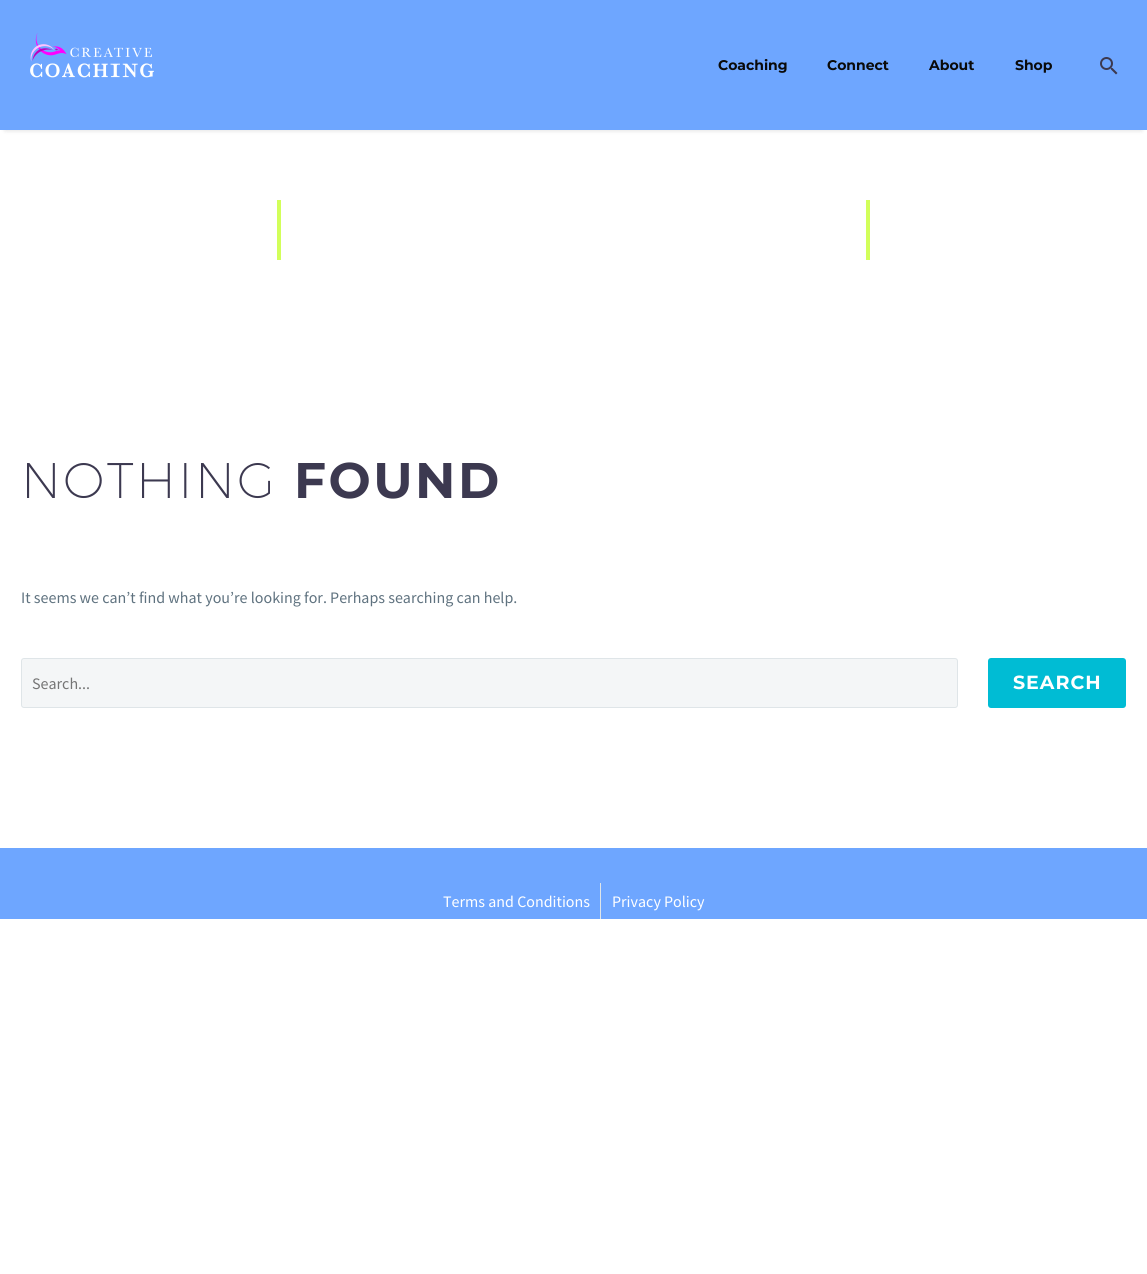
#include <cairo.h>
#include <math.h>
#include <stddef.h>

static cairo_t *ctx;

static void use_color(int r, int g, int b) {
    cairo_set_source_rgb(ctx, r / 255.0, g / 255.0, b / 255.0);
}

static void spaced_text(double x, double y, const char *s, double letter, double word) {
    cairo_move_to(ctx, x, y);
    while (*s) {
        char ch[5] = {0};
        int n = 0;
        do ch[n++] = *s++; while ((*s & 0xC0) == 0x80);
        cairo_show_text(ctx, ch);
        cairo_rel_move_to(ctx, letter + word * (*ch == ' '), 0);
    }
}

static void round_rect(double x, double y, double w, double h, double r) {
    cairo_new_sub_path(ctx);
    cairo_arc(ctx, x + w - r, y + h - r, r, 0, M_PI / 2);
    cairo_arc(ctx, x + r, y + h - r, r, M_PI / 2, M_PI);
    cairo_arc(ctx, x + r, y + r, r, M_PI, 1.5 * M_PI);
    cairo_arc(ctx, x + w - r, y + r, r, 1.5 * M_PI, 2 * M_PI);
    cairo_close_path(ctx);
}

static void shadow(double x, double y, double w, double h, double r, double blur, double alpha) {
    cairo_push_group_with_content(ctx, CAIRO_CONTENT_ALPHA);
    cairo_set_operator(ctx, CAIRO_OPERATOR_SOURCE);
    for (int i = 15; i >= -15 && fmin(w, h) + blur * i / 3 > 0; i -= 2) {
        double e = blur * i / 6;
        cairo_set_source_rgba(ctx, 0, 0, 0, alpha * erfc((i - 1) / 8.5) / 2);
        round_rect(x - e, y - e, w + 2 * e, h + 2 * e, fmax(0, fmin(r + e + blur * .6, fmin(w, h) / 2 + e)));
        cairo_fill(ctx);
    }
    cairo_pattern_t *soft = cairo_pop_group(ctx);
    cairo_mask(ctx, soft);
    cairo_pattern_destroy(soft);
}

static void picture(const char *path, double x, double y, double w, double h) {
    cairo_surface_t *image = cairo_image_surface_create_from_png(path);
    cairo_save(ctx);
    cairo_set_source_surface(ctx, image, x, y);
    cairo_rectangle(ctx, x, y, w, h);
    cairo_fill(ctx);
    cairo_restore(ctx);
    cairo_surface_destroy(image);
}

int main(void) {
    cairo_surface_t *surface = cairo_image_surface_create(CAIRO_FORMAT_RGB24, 1147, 1274);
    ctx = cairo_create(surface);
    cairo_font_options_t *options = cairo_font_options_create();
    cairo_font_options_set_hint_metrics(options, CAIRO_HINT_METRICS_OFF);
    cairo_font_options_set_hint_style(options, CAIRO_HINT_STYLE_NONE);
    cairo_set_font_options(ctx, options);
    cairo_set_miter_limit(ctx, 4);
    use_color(255, 255, 255);
    cairo_paint(ctx);
    use_color(0, 0, 0);
    shadow(5, 10, 1137, 120, 0, 2.5, 0.15);
    use_color(110, 166, 255);
    cairo_rectangle(ctx, 0, 0, 1147, 130);
    cairo_fill(ctx);
    picture("img1.png", 30, 33, 124, 45);
    cairo_select_font_face(ctx, "Montserrat", CAIRO_FONT_SLANT_NORMAL, CAIRO_FONT_WEIGHT_BOLD);
    cairo_set_font_size(ctx, 14);
    use_color(10, 10, 10);
    cairo_move_to(ctx, 718, 70);
    cairo_show_text(ctx, "Coaching");
    cairo_move_to(ctx, 827, 70);
    cairo_show_text(ctx, "Connect");
    cairo_move_to(ctx, 929, 70);
    cairo_show_text(ctx, "About");
    cairo_move_to(ctx, 1015, 70);
    cairo_show_text(ctx, "Shop");
    picture("img2.png", 1100, 57, 18, 18);
    use_color(210, 255, 90);
    cairo_rectangle(ctx, 277, 200, 4, 60);
    cairo_fill(ctx);
    cairo_rectangle(ctx, 866, 200, 4, 60);
    cairo_fill(ctx);
    cairo_select_font_face(ctx, "Montserrat ExtraLight", CAIRO_FONT_SLANT_NORMAL, CAIRO_FONT_WEIGHT_NORMAL);
    cairo_set_font_size(ctx, 50);
    use_color(60, 57, 80);
    spaced_text(21, 498, "NOTHING", 2.5, 0);
    cairo_select_font_face(ctx, "Montserrat", CAIRO_FONT_SLANT_NORMAL, CAIRO_FONT_WEIGHT_BOLD);
    spaced_text(294, 498, "FOUND", 2.5, 0);
    cairo_select_font_face(ctx, "Source Sans Pro", CAIRO_FONT_SLANT_NORMAL, CAIRO_FONT_WEIGHT_NORMAL);
    cairo_set_font_size(ctx, 16);
    use_color(95, 114, 127);
    cairo_move_to(ctx, 21, 603);
    cairo_show_text(ctx, "It seems we can’t find what you’re looking for. Perhaps searching can help.");
    use_color(244, 246, 247);
    round_rect(21.5, 658.5, 936, 49, 2.5);
    cairo_fill_preserve(ctx);
    use_color(223, 229, 232);
    cairo_set_line_width(ctx, 1);
    cairo_stroke(ctx);
    use_color(117, 117, 117);
    cairo_move_to(ctx, 32, 689);
    cairo_show_text(ctx, "Search...");
    use_color(0, 188, 212);
    round_rect(988, 658, 138, 50, 3);
    cairo_fill(ctx);
    cairo_select_font_face(ctx, "Montserrat", CAIRO_FONT_SLANT_NORMAL, CAIRO_FONT_WEIGHT_BOLD);
    cairo_set_font_size(ctx, 19);
    use_color(255, 255, 255);
    spaced_text(1013, 689, "SEARCH", 1, 0);
    use_color(110, 166, 255);
    cairo_rectangle(ctx, 0, 848, 1147, 71);
    cairo_fill(ctx);
    cairo_select_font_face(ctx, "Source Sans Pro", CAIRO_FONT_SLANT_NORMAL, CAIRO_FONT_WEIGHT_NORMAL);
    cairo_set_font_size(ctx, 16);
    use_color(255, 255, 255);
    cairo_move_to(ctx, 443, 907);
    cairo_show_text(ctx, "Terms and Conditions");
    use_color(223, 229, 232);
    cairo_rectangle(ctx, 600, 883, 1, 36);
    cairo_fill(ctx);
    use_color(255, 255, 255);
    cairo_move_to(ctx, 612, 907);
    cairo_show_text(ctx, "Privacy Policy");
    cairo_surface_write_to_png(surface, "result.png");
    cairo_font_options_destroy(options);
    cairo_destroy(ctx);
    cairo_surface_destroy(surface);
    return 0;
}
